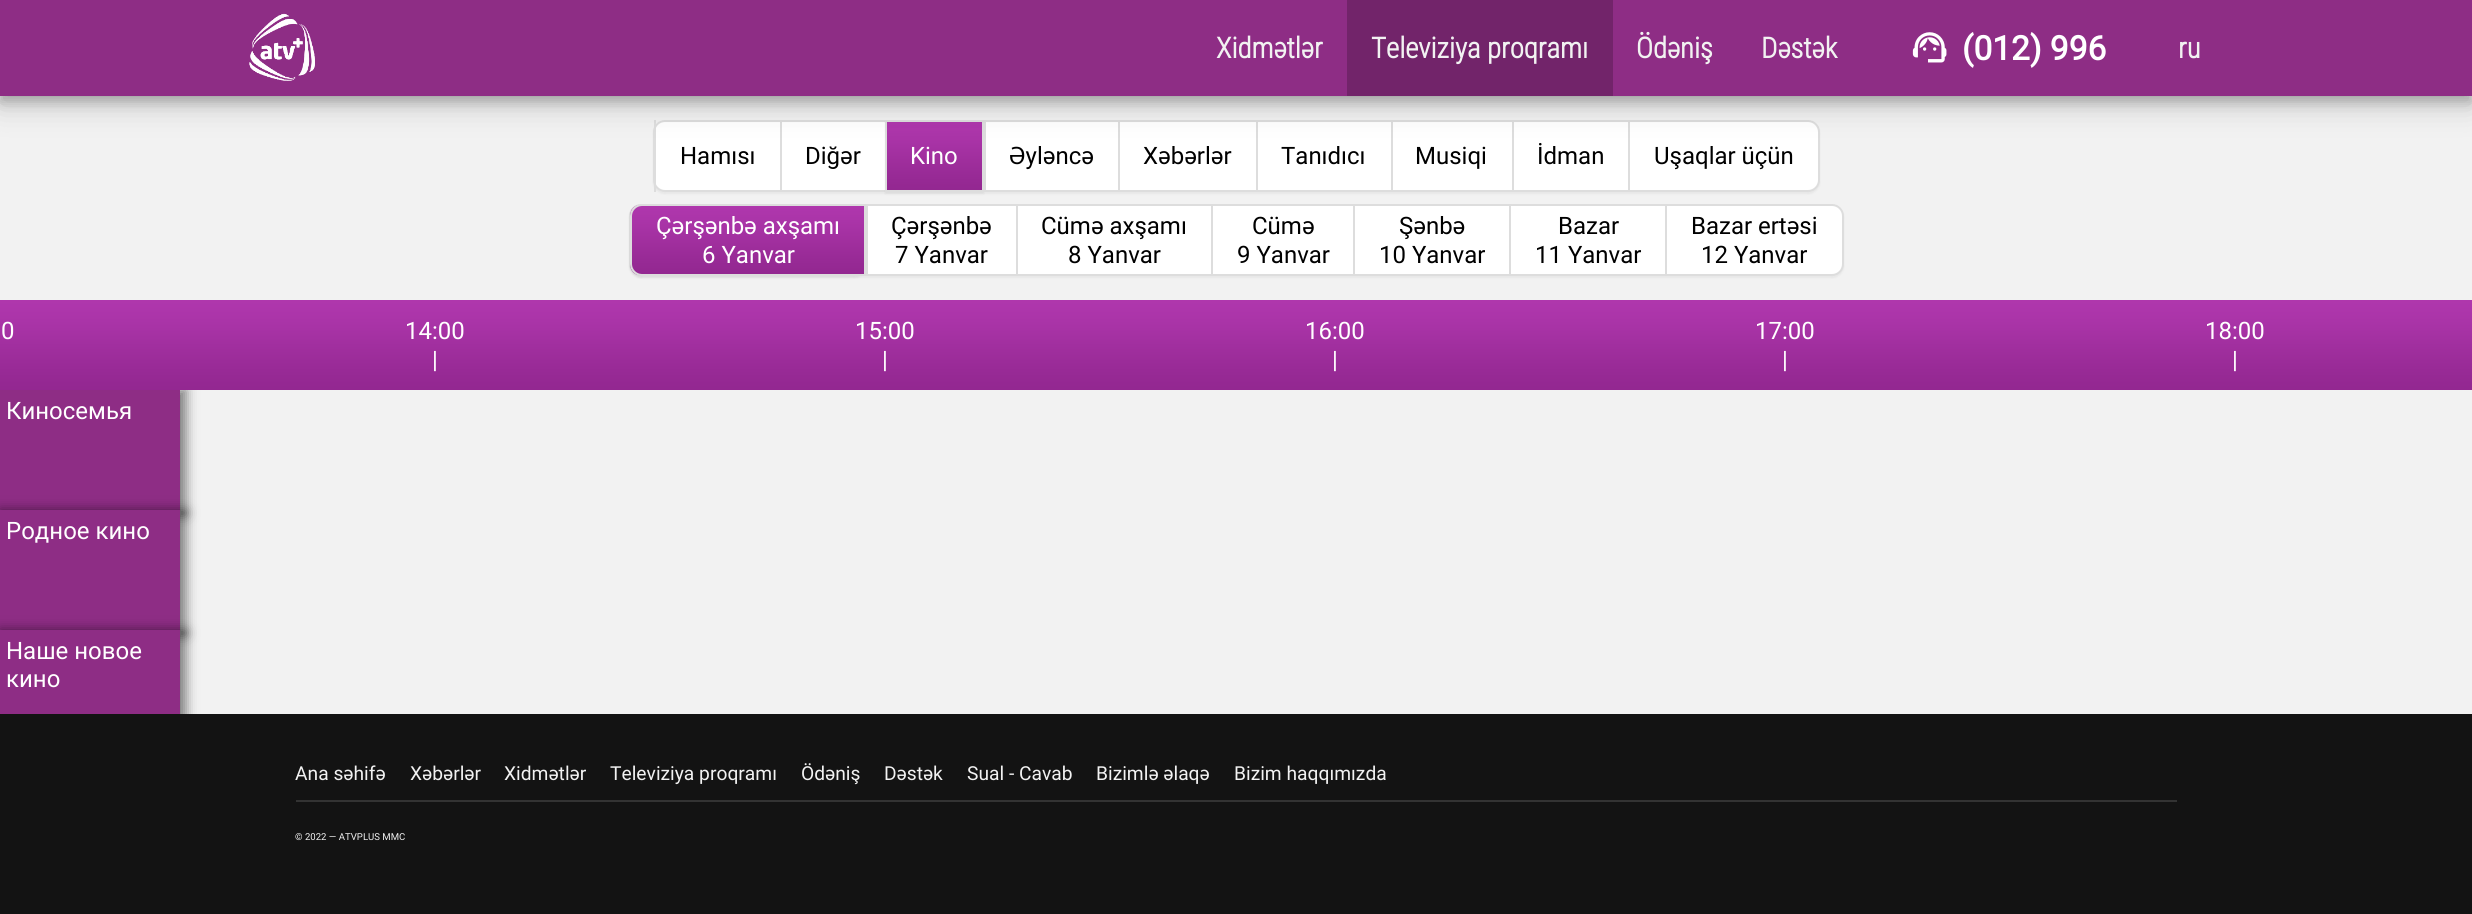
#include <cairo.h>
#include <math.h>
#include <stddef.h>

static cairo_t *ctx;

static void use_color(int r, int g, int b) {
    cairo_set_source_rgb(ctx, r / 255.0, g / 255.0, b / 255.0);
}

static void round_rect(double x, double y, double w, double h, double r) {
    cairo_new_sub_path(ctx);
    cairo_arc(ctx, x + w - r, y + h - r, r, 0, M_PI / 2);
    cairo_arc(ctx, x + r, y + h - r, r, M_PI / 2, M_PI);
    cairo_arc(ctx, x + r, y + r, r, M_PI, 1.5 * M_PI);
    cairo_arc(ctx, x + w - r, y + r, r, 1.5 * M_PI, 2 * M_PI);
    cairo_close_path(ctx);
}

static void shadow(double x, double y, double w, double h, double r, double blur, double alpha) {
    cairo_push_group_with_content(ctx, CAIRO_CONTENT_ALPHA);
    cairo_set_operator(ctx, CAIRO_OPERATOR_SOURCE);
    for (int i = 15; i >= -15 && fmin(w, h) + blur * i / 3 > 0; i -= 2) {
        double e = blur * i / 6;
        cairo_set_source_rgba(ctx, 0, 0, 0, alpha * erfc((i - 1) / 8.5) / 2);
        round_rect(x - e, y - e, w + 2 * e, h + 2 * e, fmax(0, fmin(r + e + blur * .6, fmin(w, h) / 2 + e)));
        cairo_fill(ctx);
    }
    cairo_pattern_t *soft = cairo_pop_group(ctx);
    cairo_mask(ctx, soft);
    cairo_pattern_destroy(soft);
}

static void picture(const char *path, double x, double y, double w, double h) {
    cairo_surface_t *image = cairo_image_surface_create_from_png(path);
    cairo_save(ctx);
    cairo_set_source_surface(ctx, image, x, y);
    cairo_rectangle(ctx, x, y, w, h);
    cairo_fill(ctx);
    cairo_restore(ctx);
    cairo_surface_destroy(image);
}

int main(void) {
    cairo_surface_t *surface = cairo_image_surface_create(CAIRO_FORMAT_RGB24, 2472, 914);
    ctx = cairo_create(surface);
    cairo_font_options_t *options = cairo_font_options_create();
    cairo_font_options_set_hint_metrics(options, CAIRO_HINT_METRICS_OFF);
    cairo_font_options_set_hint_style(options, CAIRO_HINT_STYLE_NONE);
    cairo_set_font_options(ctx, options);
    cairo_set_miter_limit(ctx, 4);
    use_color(242, 242, 242);
    cairo_paint(ctx);
    use_color(0, 0, 0);
    shadow(653, 122, 1167, 72, 12, 1, 0.05);
    use_color(255, 255, 255);
    round_rect(654, 121, 1165, 70, 11);
    cairo_fill_preserve(ctx);
    use_color(221, 221, 221);
    cairo_stroke(ctx);
    cairo_rectangle(ctx, 654, 120, 2, 72);
    cairo_fill(ctx);
    cairo_rectangle(ctx, 780, 120, 2, 72);
    cairo_fill(ctx);
    use_color(0, 0, 0);
    shadow(885, 122, 99, 72, 0, 1, 0.05);
    picture("img3.png", 887, 122, 95, 68);
    cairo_rectangle(ctx, 886, 121, 97, 70);
    use_color(221, 221, 221);
    cairo_stroke(ctx);
    cairo_rectangle(ctx, 984, 120, 2, 72);
    cairo_fill(ctx);
    cairo_rectangle(ctx, 1118, 120, 2, 72);
    cairo_fill(ctx);
    cairo_rectangle(ctx, 1256, 120, 2, 72);
    cairo_fill(ctx);
    cairo_rectangle(ctx, 1391, 120, 2, 72);
    cairo_fill(ctx);
    cairo_rectangle(ctx, 1512, 120, 2, 72);
    cairo_fill(ctx);
    cairo_rectangle(ctx, 1628, 120, 2, 72);
    cairo_fill(ctx);
    use_color(0, 0, 0);
    shadow(0, 9, 2472, 96, 0, 15, 0.19);
    shadow(0, 6, 2472, 96, 0, 6, 0.2);
    use_color(142, 45, 133);
    cairo_rectangle(ctx, 0, 0, 2472, 96);
    cairo_fill(ctx);
    picture("img1.png", 249, 13, 66, 68);
    cairo_select_font_face(ctx, "Roboto Condensed", CAIRO_FONT_SLANT_NORMAL, CAIRO_FONT_WEIGHT_BOLD);
    cairo_set_font_size(ctx, 28.75);
    use_color(242, 242, 242);
    cairo_move_to(ctx, 1216, 58);
    cairo_show_text(ctx, "Xidmətlər");
    use_color(114, 36, 106);
    cairo_rectangle(ctx, 1347, 0, 266, 96);
    cairo_fill(ctx);
    use_color(242, 242, 242);
    cairo_move_to(ctx, 1371, 58);
    cairo_show_text(ctx, "Televiziya proqramı");
    cairo_move_to(ctx, 1636, 58);
    cairo_show_text(ctx, "Ödəniş");
    cairo_move_to(ctx, 1761, 58);
    cairo_show_text(ctx, "Dəstək");
    picture("img2.png", 1912, 32, 35, 31);
    cairo_select_font_face(ctx, "Roboto", CAIRO_FONT_SLANT_NORMAL, CAIRO_FONT_WEIGHT_BOLD);
    cairo_set_font_size(ctx, 33.5);
    use_color(255, 255, 255);
    cairo_move_to(ctx, 1962, 60);
    cairo_show_text(ctx, "(012) 996");
    cairo_select_font_face(ctx, "Roboto Condensed", CAIRO_FONT_SLANT_NORMAL, CAIRO_FONT_WEIGHT_BOLD);
    cairo_set_font_size(ctx, 28.75);
    use_color(242, 242, 242);
    cairo_move_to(ctx, 2178, 58);
    cairo_show_text(ctx, "ru");
    cairo_select_font_face(ctx, "Roboto", CAIRO_FONT_SLANT_NORMAL, CAIRO_FONT_WEIGHT_NORMAL);
    cairo_set_font_size(ctx, 24);
    use_color(0, 0, 0);
    cairo_move_to(ctx, 680, 164);
    cairo_show_text(ctx, "Hamısı");
    cairo_move_to(ctx, 805, 164);
    cairo_show_text(ctx, "Diğər");
    use_color(255, 255, 255);
    cairo_move_to(ctx, 910, 164);
    cairo_show_text(ctx, "Kino");
    use_color(0, 0, 0);
    cairo_move_to(ctx, 1009, 164);
    cairo_show_text(ctx, "Əyləncə");
    cairo_move_to(ctx, 1143, 164);
    cairo_show_text(ctx, "Xəbərlər");
    cairo_move_to(ctx, 1281, 164);
    cairo_show_text(ctx, "Tanıdıcı");
    cairo_move_to(ctx, 1415, 164);
    cairo_show_text(ctx, "Musiqi");
    cairo_move_to(ctx, 1537, 164);
    cairo_show_text(ctx, "İdman");
    cairo_move_to(ctx, 1654, 164);
    cairo_show_text(ctx, "Uşaqlar üçün");
    use_color(0, 0, 0);
    shadow(629, 206, 1215, 72, 12, 1, 0.05);
    use_color(255, 255, 255);
    round_rect(630, 205, 1213, 70, 11);
    cairo_fill_preserve(ctx);
    use_color(221, 221, 221);
    cairo_stroke(ctx);
    use_color(0, 0, 0);
    shadow(630, 206, 236, 72, 12, 1, 0.05);
    picture("img4.png", 630, 205, 234, 70);
    cairo_new_path(ctx);
    cairo_move_to(ctx, 642, 205);
    cairo_line_to(ctx, 865, 205);
    cairo_line_to(ctx, 865, 275);
    cairo_line_to(ctx, 642, 275);
    cairo_curve_to(ctx, 636, 275, 631, 270, 631, 264);
    cairo_line_to(ctx, 631, 216);
    cairo_curve_to(ctx, 631, 210, 636, 205, 642, 205);
    cairo_close_path(ctx);
    use_color(221, 221, 221);
    cairo_stroke(ctx);
    use_color(255, 255, 255);
    cairo_move_to(ctx, 656, 234);
    cairo_show_text(ctx, "Çərşənbə axşamı");
    cairo_move_to(ctx, 702, 263);
    cairo_show_text(ctx, "6 Yanvar");
    use_color(221, 221, 221);
    cairo_rectangle(ctx, 866, 204, 2, 72);
    cairo_fill(ctx);
    use_color(0, 0, 0);
    cairo_move_to(ctx, 891, 234);
    cairo_show_text(ctx, "Çərşənbə");
    cairo_move_to(ctx, 895, 263);
    cairo_show_text(ctx, "7 Yanvar");
    use_color(221, 221, 221);
    cairo_rectangle(ctx, 1016, 204, 2, 72);
    cairo_fill(ctx);
    use_color(0, 0, 0);
    cairo_move_to(ctx, 1041, 234);
    cairo_show_text(ctx, "Cümə axşamı");
    cairo_move_to(ctx, 1068, 263);
    cairo_show_text(ctx, "8 Yanvar");
    use_color(221, 221, 221);
    cairo_rectangle(ctx, 1211, 204, 2, 72);
    cairo_fill(ctx);
    use_color(0, 0, 0);
    cairo_move_to(ctx, 1252, 234);
    cairo_show_text(ctx, "Cümə");
    cairo_move_to(ctx, 1237, 263);
    cairo_show_text(ctx, "9 Yanvar");
    use_color(221, 221, 221);
    cairo_rectangle(ctx, 1353, 204, 2, 72);
    cairo_fill(ctx);
    use_color(0, 0, 0);
    cairo_move_to(ctx, 1399, 234);
    cairo_show_text(ctx, "Şənbə");
    cairo_move_to(ctx, 1379, 263);
    cairo_show_text(ctx, "10 Yanvar");
    use_color(221, 221, 221);
    cairo_rectangle(ctx, 1509, 204, 2, 72);
    cairo_fill(ctx);
    use_color(0, 0, 0);
    cairo_move_to(ctx, 1558, 234);
    cairo_show_text(ctx, "Bazar");
    cairo_move_to(ctx, 1535, 263);
    cairo_show_text(ctx, "11 Yanvar");
    use_color(221, 221, 221);
    cairo_rectangle(ctx, 1665, 204, 2, 72);
    cairo_fill(ctx);
    use_color(0, 0, 0);
    cairo_move_to(ctx, 1691, 234);
    cairo_show_text(ctx, "Bazar ertəsi");
    cairo_move_to(ctx, 1701, 263);
    cairo_show_text(ctx, "12 Yanvar");
    use_color(0, 0, 0);
    shadow(0, 390, 186, 126, 0, 6, 0.5);
    picture("img5.png", 0, 300, 435, 90);
    use_color(255, 255, 255);
    cairo_move_to(ctx, 1, 339);
    cairo_show_text(ctx, "0");
    picture("img6.png", 435, 300, 450, 90);
    cairo_move_to(ctx, 405, 339);
    cairo_show_text(ctx, "14:00");
    cairo_move_to(ctx, 432, 368);
    cairo_show_text(ctx, "|");
    picture("img6.png", 885, 300, 450, 90);
    cairo_move_to(ctx, 855, 339);
    cairo_show_text(ctx, "15:00");
    cairo_move_to(ctx, 882, 368);
    cairo_show_text(ctx, "|");
    picture("img6.png", 1335, 300, 450, 90);
    cairo_move_to(ctx, 1305, 339);
    cairo_show_text(ctx, "16:00");
    cairo_move_to(ctx, 1332, 368);
    cairo_show_text(ctx, "|");
    picture("img6.png", 1785, 300, 450, 90);
    cairo_move_to(ctx, 1755, 339);
    cairo_show_text(ctx, "17:00");
    cairo_move_to(ctx, 1782, 368);
    cairo_show_text(ctx, "|");
    picture("img7.png", 2235, 300, 237, 90);
    cairo_move_to(ctx, 2205, 339);
    cairo_show_text(ctx, "18:00");
    cairo_move_to(ctx, 2232, 368);
    cairo_show_text(ctx, "|");
    use_color(142, 45, 133);
    cairo_rectangle(ctx, 0, 390, 180, 120);
    cairo_fill(ctx);
    use_color(255, 255, 255);
    cairo_move_to(ctx, 6, 419);
    cairo_show_text(ctx, "Киносемья");
    use_color(0, 0, 0);
    shadow(0, 510, 186, 126, 0, 6, 0.5);
    use_color(142, 45, 133);
    cairo_rectangle(ctx, 0, 510, 180, 120);
    cairo_fill(ctx);
    use_color(255, 255, 255);
    cairo_move_to(ctx, 6, 539);
    cairo_show_text(ctx, "Родное кино");
    use_color(19, 19, 19);
    cairo_rectangle(ctx, 0, 714, 2472, 200);
    cairo_fill(ctx);
    cairo_save(ctx);
    cairo_rectangle(ctx, 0, 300, 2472, 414);
    cairo_clip(ctx);
    use_color(0, 0, 0);
    shadow(0, 630, 186, 126, 0, 6, 0.5);
    cairo_restore(ctx);
    use_color(142, 45, 133);
    cairo_rectangle(ctx, 0, 630, 180, 84);
    cairo_fill(ctx);
    use_color(255, 255, 255);
    cairo_move_to(ctx, 6, 659);
    cairo_show_text(ctx, "Наше новое");
    cairo_move_to(ctx, 6, 687);
    cairo_show_text(ctx, "кино");
    cairo_set_font_size(ctx, 19.25);
    use_color(242, 242, 242);
    cairo_move_to(ctx, 295, 780);
    cairo_show_text(ctx, "Ana səhifə");
    cairo_move_to(ctx, 410, 780);
    cairo_show_text(ctx, "Xəbərlər");
    cairo_move_to(ctx, 504, 780);
    cairo_show_text(ctx, "Xidmətlər");
    cairo_move_to(ctx, 610, 780);
    cairo_show_text(ctx, "Televiziya proqramı");
    cairo_move_to(ctx, 801, 780);
    cairo_show_text(ctx, "Ödəniş");
    cairo_move_to(ctx, 884, 780);
    cairo_show_text(ctx, "Dəstək");
    cairo_move_to(ctx, 967, 780);
    cairo_show_text(ctx, "Sual - Cavab");
    cairo_move_to(ctx, 1096, 780);
    cairo_show_text(ctx, "Bizimlə əlaqə");
    cairo_move_to(ctx, 1234, 780);
    cairo_show_text(ctx, "Bizim haqqımızda");
    use_color(51, 51, 51);
    cairo_rectangle(ctx, 296, 800, 1881, 2);
    cairo_fill(ctx);
    cairo_set_font_size(ctx, 9.6);
    use_color(242, 242, 242);
    cairo_move_to(ctx, 295, 840);
    cairo_show_text(ctx, "© 2022 — ATVPLUS MMC");
    cairo_surface_write_to_png(surface, "result.png");
    cairo_font_options_destroy(options);
    cairo_destroy(ctx);
    cairo_surface_destroy(surface);
    return 0;
}
